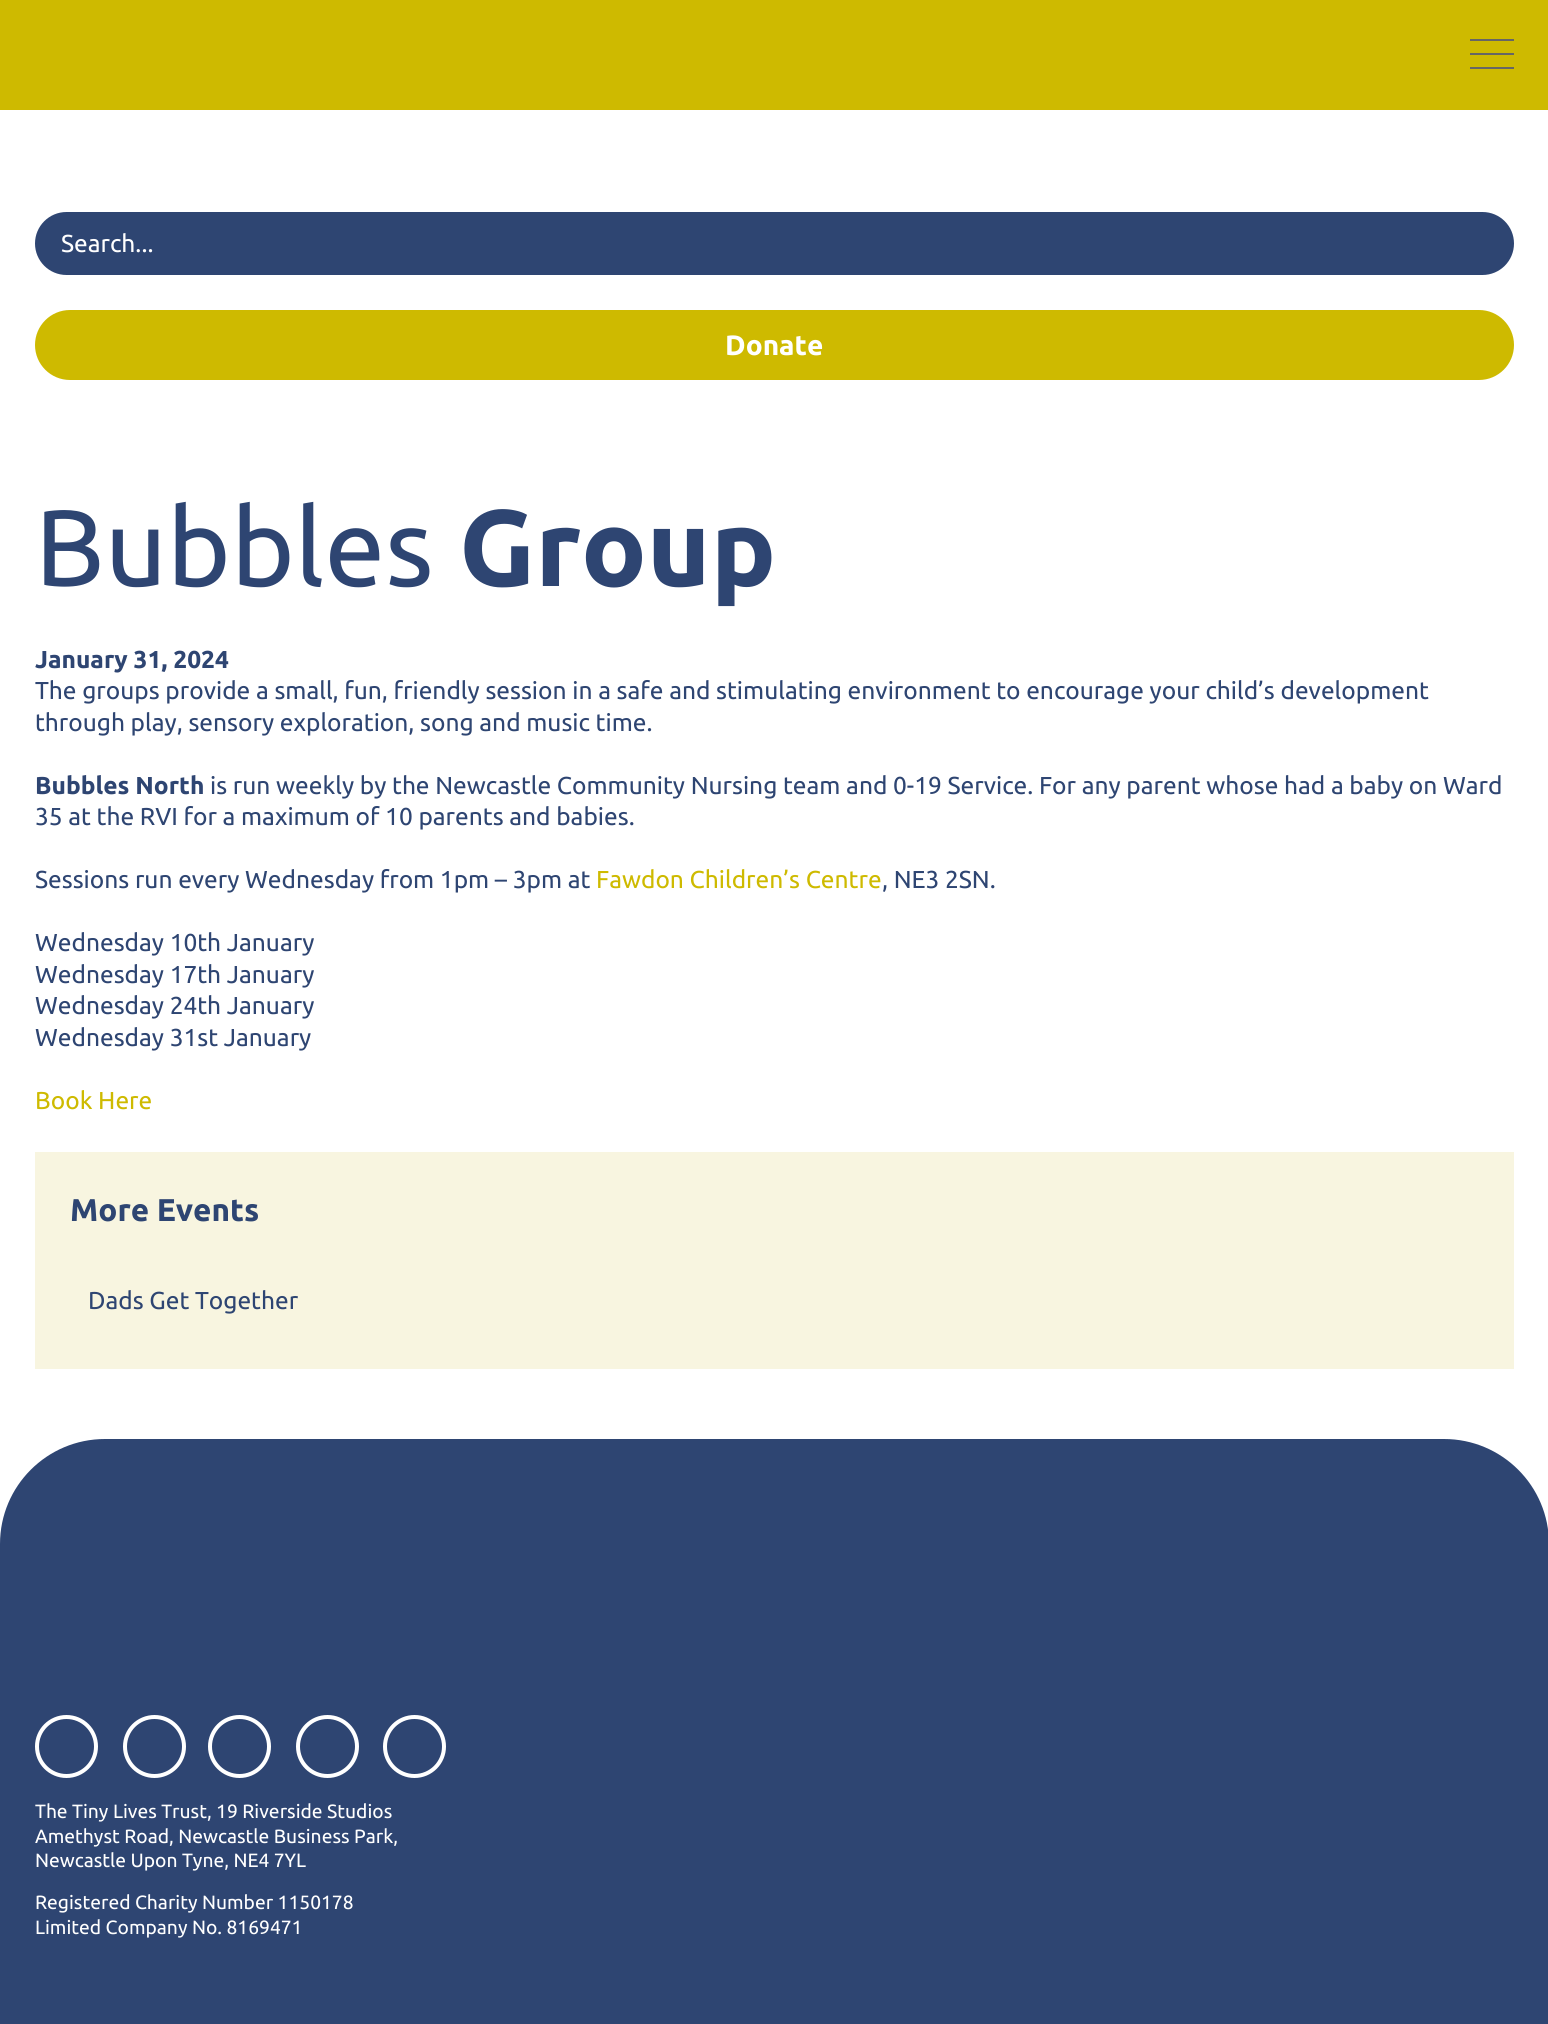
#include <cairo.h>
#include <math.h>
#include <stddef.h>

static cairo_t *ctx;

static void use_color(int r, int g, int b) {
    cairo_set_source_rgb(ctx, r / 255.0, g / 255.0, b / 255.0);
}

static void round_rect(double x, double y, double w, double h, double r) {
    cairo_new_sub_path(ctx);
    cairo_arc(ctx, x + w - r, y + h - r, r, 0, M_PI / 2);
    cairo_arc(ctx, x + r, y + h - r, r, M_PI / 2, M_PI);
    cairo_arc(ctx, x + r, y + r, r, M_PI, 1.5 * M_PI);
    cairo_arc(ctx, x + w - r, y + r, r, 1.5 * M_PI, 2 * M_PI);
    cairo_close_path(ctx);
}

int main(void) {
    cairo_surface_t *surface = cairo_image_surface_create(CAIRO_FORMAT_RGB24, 1548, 2024);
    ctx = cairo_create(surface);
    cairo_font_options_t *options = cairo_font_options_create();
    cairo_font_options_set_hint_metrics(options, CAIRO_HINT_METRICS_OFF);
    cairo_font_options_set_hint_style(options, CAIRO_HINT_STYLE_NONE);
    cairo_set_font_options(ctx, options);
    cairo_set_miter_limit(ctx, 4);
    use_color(255, 255, 255);
    cairo_paint(ctx);
    use_color(206, 186, 0);
    cairo_rectangle(ctx, 0, 0, 1548, 110);
    cairo_fill(ctx);
    use_color(102, 102, 102);
    cairo_rectangle(ctx, 1470, 53, 44, 2);
    cairo_fill(ctx);
    cairo_rectangle(ctx, 1470, 39, 44, 2);
    cairo_fill(ctx);
    cairo_rectangle(ctx, 1470, 67, 44, 2);
    cairo_fill(ctx);
    use_color(46, 69, 114);
    round_rect(35, 212, 1479, 63, 31.5);
    cairo_fill(ctx);
    cairo_select_font_face(ctx, "Ubuntu", CAIRO_FONT_SLANT_NORMAL, CAIRO_FONT_WEIGHT_NORMAL);
    cairo_set_font_size(ctx, 24.5);
    use_color(255, 255, 255);
    cairo_move_to(ctx, 61, 252);
    cairo_show_text(ctx, "Search...");
    use_color(206, 186, 0);
    round_rect(37, 312, 1475, 66, 33);
    cairo_fill_preserve(ctx);
    cairo_set_line_width(ctx, 4);
    cairo_stroke(ctx);
    cairo_select_font_face(ctx, "Ubuntu", CAIRO_FONT_SLANT_NORMAL, CAIRO_FONT_WEIGHT_BOLD);
    cairo_set_font_size(ctx, 28);
    use_color(255, 255, 255);
    cairo_move_to(ctx, 725, 355);
    cairo_show_text(ctx, "Donate");
    cairo_select_font_face(ctx, "Ubuntu", CAIRO_FONT_SLANT_NORMAL, CAIRO_FONT_WEIGHT_NORMAL);
    cairo_set_font_size(ctx, 108.5);
    use_color(46, 69, 114);
    cairo_move_to(ctx, 35, 586);
    cairo_show_text(ctx, "Bubbles");
    cairo_select_font_face(ctx, "Ubuntu", CAIRO_FONT_SLANT_NORMAL, CAIRO_FONT_WEIGHT_BOLD);
    cairo_move_to(ctx, 459, 586);
    cairo_show_text(ctx, "Group");
    cairo_set_font_size(ctx, 24.5);
    cairo_move_to(ctx, 35, 668);
    cairo_show_text(ctx, "January 31, 2024");
    cairo_select_font_face(ctx, "Ubuntu", CAIRO_FONT_SLANT_NORMAL, CAIRO_FONT_WEIGHT_NORMAL);
    cairo_move_to(ctx, 35, 699);
    cairo_show_text(ctx, "The groups provide a small, fun, friendly session in a safe and stimulating environment to encourage your child’s development");
    cairo_move_to(ctx, 35, 731);
    cairo_show_text(ctx, "through play, sensory exploration, song and music time.");
    cairo_select_font_face(ctx, "Ubuntu", CAIRO_FONT_SLANT_NORMAL, CAIRO_FONT_WEIGHT_BOLD);
    cairo_move_to(ctx, 35, 794);
    cairo_show_text(ctx, "Bubbles North");
    cairo_select_font_face(ctx, "Ubuntu", CAIRO_FONT_SLANT_NORMAL, CAIRO_FONT_WEIGHT_NORMAL);
    cairo_move_to(ctx, 210, 794);
    cairo_show_text(ctx, "is run weekly by the Newcastle Community Nursing team and 0-19 Service. For any parent whose had a baby on Ward");
    cairo_move_to(ctx, 35, 825);
    cairo_show_text(ctx, "35 at the RVI for a maximum of 10 parents and babies.");
    cairo_move_to(ctx, 35, 888);
    cairo_show_text(ctx, "Sessions run every Wednesday from 1pm – 3pm at");
    use_color(206, 186, 0);
    cairo_move_to(ctx, 596, 888);
    cairo_show_text(ctx, "Fawdon Children’s Centre");
    use_color(46, 69, 114);
    cairo_move_to(ctx, 882, 888);
    cairo_show_text(ctx, ", NE3 2SN.");
    cairo_move_to(ctx, 35, 951);
    cairo_show_text(ctx, "Wednesday 10th January");
    cairo_move_to(ctx, 35, 983);
    cairo_show_text(ctx, "Wednesday 17th January");
    cairo_move_to(ctx, 35, 1014);
    cairo_show_text(ctx, "Wednesday 24th January");
    cairo_move_to(ctx, 35, 1046);
    cairo_show_text(ctx, "Wednesday 31st January");
    use_color(206, 186, 0);
    cairo_move_to(ctx, 35, 1109);
    cairo_show_text(ctx, "Book Here");
    use_color(248, 245, 224);
    cairo_rectangle(ctx, 35, 1152, 1479, 217);
    cairo_fill(ctx);
    cairo_select_font_face(ctx, "Ubuntu", CAIRO_FONT_SLANT_NORMAL, CAIRO_FONT_WEIGHT_BOLD);
    cairo_set_font_size(ctx, 31.5);
    use_color(46, 69, 114);
    cairo_move_to(ctx, 70, 1221);
    cairo_show_text(ctx, "More Events");
    cairo_select_font_face(ctx, "Ubuntu", CAIRO_FONT_SLANT_NORMAL, CAIRO_FONT_WEIGHT_NORMAL);
    cairo_set_font_size(ctx, 24.5);
    cairo_move_to(ctx, 88, 1309);
    cairo_show_text(ctx, "Dads Get Together");
    cairo_new_path(ctx);
    cairo_move_to(ctx, 105, 1439);
    cairo_line_to(ctx, 1444, 1439);
    cairo_curve_to(ctx, 1502, 1439, 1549, 1486, 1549, 1544);
    cairo_line_to(ctx, 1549, 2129);
    cairo_line_to(ctx, 0, 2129);
    cairo_line_to(ctx, 0, 1544);
    cairo_curve_to(ctx, 0, 1486, 47, 1439, 105, 1439);
    cairo_close_path(ctx);
    cairo_fill(ctx);
    cairo_arc(ctx, 66.5, 1746.5, 29.5, 0, 2 * M_PI);
    use_color(255, 255, 255);
    cairo_stroke(ctx);
    cairo_arc(ctx, 154.5, 1746.5, 29.5, 0, 2 * M_PI);
    cairo_stroke(ctx);
    cairo_arc(ctx, 239.5, 1746.5, 29.5, 0, 2 * M_PI);
    cairo_stroke(ctx);
    cairo_arc(ctx, 327.5, 1746.5, 29.5, 0, 2 * M_PI);
    cairo_stroke(ctx);
    cairo_arc(ctx, 414.5, 1746.5, 29.5, 0, 2 * M_PI);
    cairo_stroke(ctx);
    cairo_set_font_size(ctx, 19.25);
    cairo_move_to(ctx, 35, 1818);
    cairo_show_text(ctx, "The Tiny Lives Trust, 19 Riverside Studios");
    cairo_move_to(ctx, 35, 1843);
    cairo_show_text(ctx, "Amethyst Road, Newcastle Business Park,");
    cairo_move_to(ctx, 35, 1867);
    cairo_show_text(ctx, "Newcastle Upon Tyne, NE4 7YL");
    cairo_move_to(ctx, 35, 1909);
    cairo_show_text(ctx, "Registered Charity Number 1150178");
    cairo_move_to(ctx, 35, 1934);
    cairo_show_text(ctx, "Limited Company No. 8169471");
    cairo_surface_write_to_png(surface, "result.png");
    cairo_font_options_destroy(options);
    cairo_destroy(ctx);
    cairo_surface_destroy(surface);
    return 0;
}
